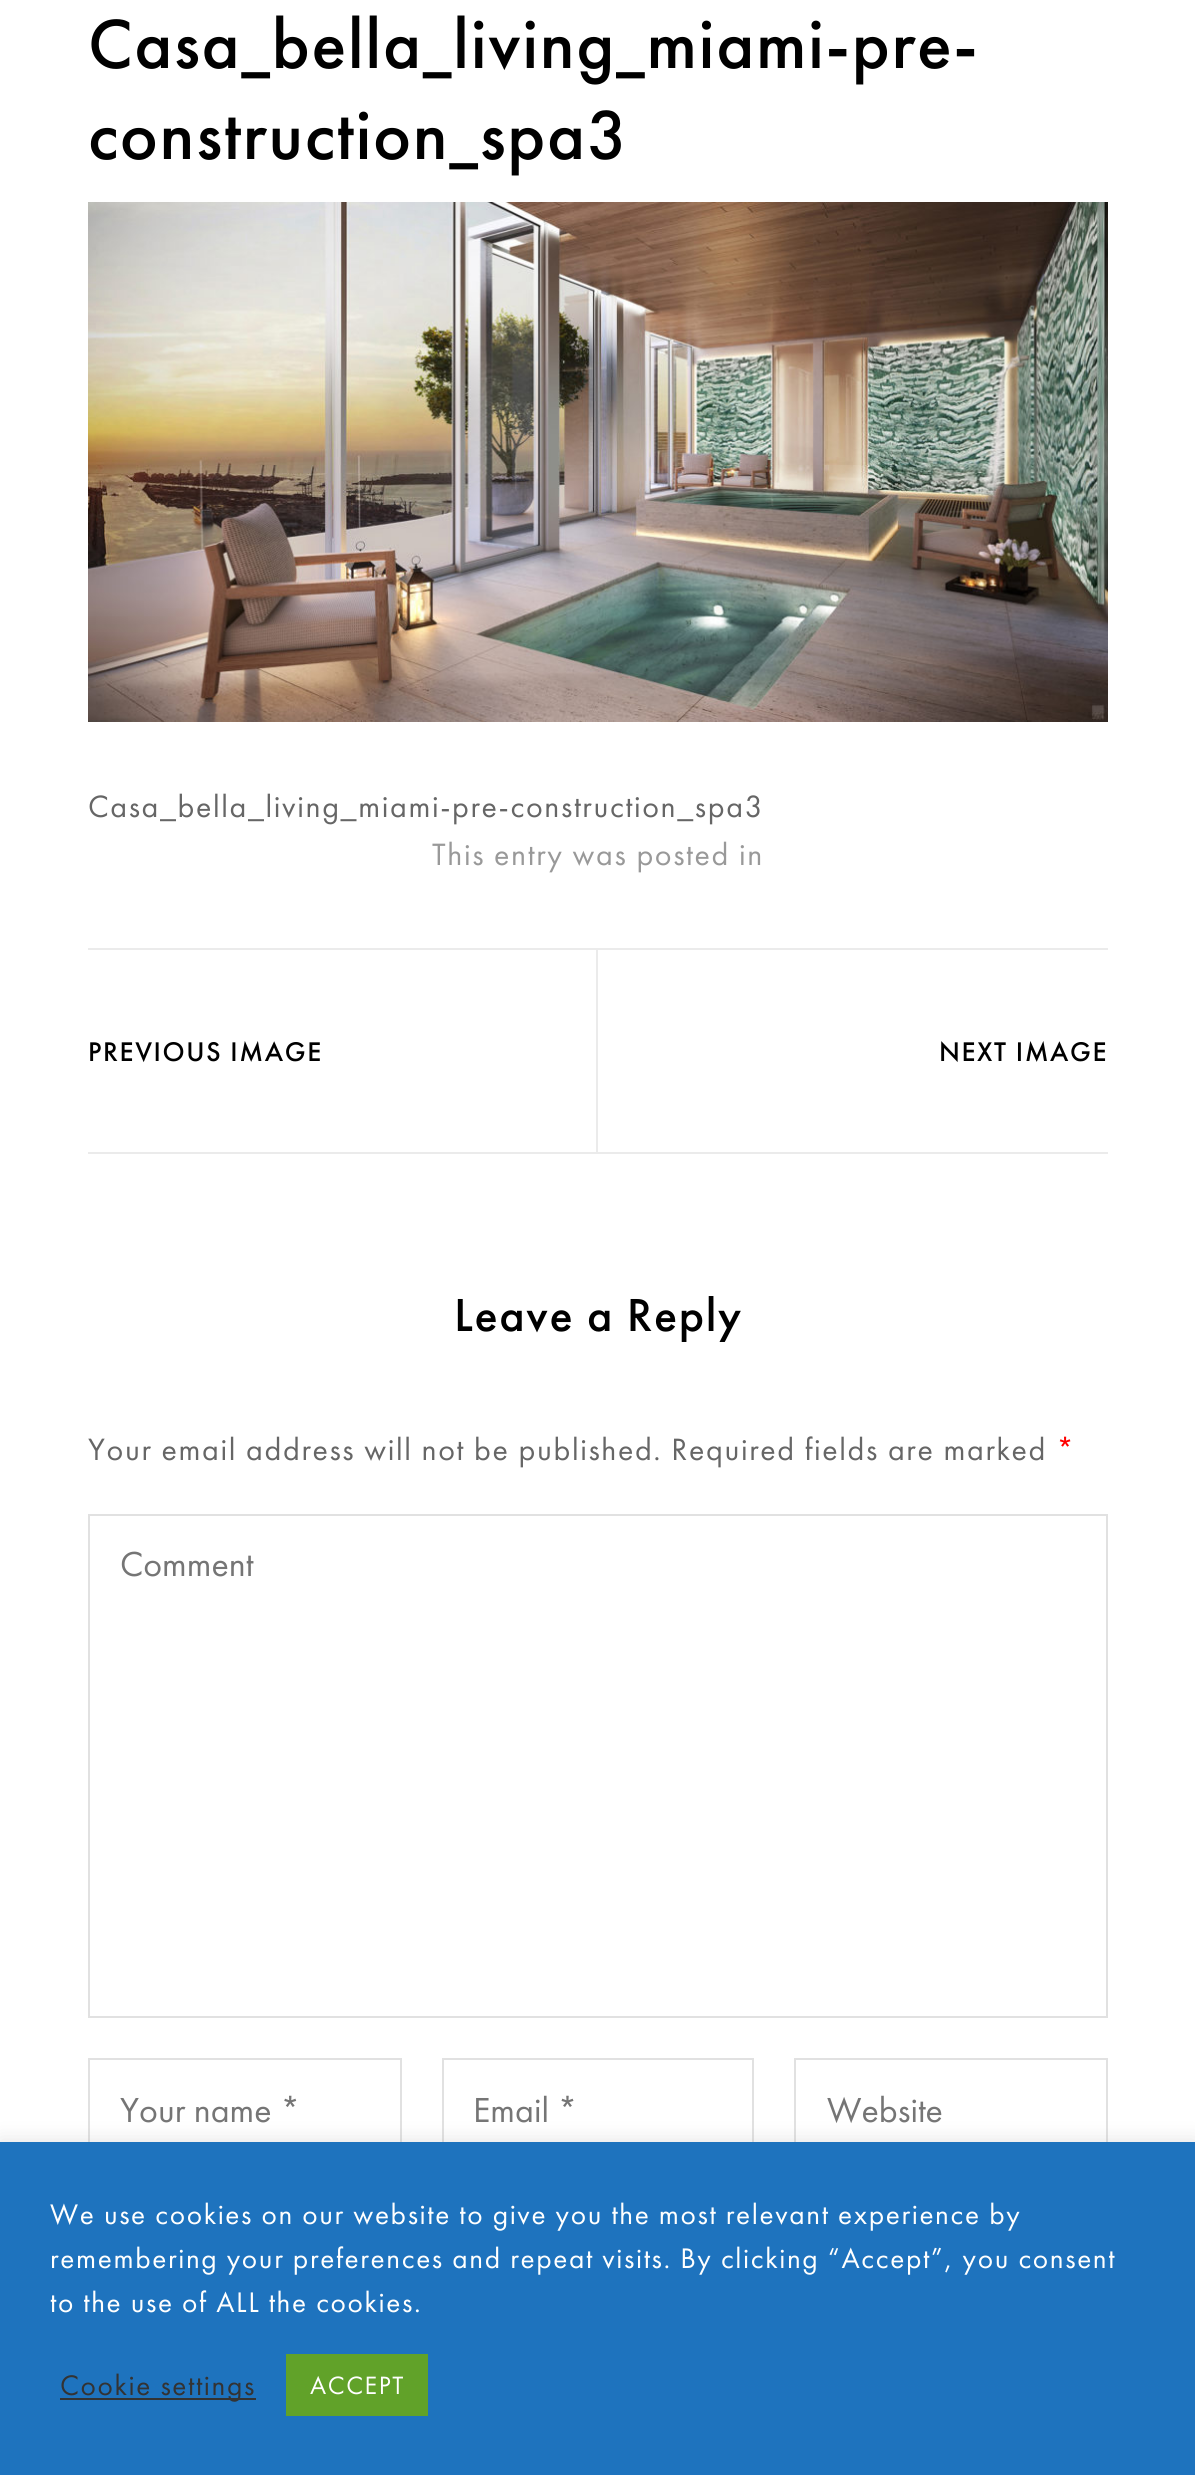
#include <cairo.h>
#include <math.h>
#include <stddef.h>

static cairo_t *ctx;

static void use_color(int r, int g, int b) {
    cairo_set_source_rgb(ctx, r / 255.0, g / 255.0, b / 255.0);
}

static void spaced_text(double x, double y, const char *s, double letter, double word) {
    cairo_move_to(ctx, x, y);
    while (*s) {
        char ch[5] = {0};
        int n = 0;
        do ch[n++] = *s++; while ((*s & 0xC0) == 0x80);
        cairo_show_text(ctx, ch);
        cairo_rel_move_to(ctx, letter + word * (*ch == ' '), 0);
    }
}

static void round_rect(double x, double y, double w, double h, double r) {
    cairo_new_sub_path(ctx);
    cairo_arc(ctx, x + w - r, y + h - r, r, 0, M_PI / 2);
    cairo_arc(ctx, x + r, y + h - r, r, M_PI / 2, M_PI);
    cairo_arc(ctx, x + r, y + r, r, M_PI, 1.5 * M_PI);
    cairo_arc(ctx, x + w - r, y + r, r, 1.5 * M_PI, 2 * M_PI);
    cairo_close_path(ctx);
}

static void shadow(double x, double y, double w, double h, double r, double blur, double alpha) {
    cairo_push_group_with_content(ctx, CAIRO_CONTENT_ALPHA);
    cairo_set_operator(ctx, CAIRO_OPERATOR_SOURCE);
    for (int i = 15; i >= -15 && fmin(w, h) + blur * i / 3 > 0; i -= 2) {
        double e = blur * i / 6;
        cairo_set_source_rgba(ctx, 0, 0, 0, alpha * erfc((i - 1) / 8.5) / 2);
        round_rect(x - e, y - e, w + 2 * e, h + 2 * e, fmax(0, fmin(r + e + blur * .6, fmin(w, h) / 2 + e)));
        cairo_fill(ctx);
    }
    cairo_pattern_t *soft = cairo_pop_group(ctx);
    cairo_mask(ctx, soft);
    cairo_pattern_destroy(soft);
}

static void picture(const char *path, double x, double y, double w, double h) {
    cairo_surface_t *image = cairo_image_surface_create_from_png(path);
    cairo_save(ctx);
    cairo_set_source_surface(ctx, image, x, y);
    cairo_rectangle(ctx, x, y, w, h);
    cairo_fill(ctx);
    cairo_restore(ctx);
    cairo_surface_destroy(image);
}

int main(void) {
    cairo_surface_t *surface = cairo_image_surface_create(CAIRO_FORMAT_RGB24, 1195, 2475);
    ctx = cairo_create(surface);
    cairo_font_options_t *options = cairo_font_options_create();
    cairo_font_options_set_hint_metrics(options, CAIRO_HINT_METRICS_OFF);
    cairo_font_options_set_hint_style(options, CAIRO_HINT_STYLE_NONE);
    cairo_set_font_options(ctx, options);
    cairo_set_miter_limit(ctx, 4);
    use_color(255, 255, 255);
    cairo_paint(ctx);
    cairo_select_font_face(ctx, "Futura PT Medium", CAIRO_FONT_SLANT_NORMAL, CAIRO_FONT_WEIGHT_NORMAL);
    cairo_set_font_size(ctx, 72);
    use_color(0, 0, 0);
    spaced_text(88, 68, "Casa_bella_living_miami-pre-", 1.6, 0);
    spaced_text(88, 159, "construction_spa3", 1.6, 0);
    picture("img1.png", 88, 202, 1020, 520);
    cairo_select_font_face(ctx, "Futura PT", CAIRO_FONT_SLANT_NORMAL, CAIRO_FONT_WEIGHT_NORMAL);
    cairo_set_font_size(ctx, 32);
    use_color(102, 102, 102);
    spaced_text(88, 817, "Casa_bella_living_miami-pre-construction_spa3", 1.6, 0);
    use_color(235, 235, 235);
    cairo_rectangle(ctx, 88, 948, 1020, 2);
    cairo_fill(ctx);
    use_color(153, 153, 153);
    spaced_text(432, 865, "This entry was posted in", 1.6, 0);
    use_color(235, 235, 235);
    cairo_rectangle(ctx, 88, 1152, 1020, 2);
    cairo_fill(ctx);
    cairo_rectangle(ctx, 596, 950, 2, 202);
    cairo_fill(ctx);
    cairo_select_font_face(ctx, "Futura PT Medium", CAIRO_FONT_SLANT_NORMAL, CAIRO_FONT_WEIGHT_NORMAL);
    cairo_set_font_size(ctx, 28);
    use_color(0, 0, 0);
    spaced_text(88, 1061, "PREVIOUS IMAGE", 1.6, 0);
    spaced_text(939, 1061, "NEXT IMAGE", 1.6, 0);
    cairo_set_font_size(ctx, 48);
    spaced_text(454, 1331, "Leave a Reply", 1.6, 0);
    cairo_select_font_face(ctx, "Futura PT", CAIRO_FONT_SLANT_NORMAL, CAIRO_FONT_WEIGHT_NORMAL);
    cairo_set_font_size(ctx, 32);
    use_color(102, 102, 102);
    spaced_text(88, 1460, "Your email address will not be published. Required fields are marked", 1.6, 0);
    use_color(255, 0, 0);
    spaced_text(1056, 1460, "*", 1.6, 0);
    cairo_rectangle(ctx, 89, 1515, 1018, 502);
    use_color(225, 225, 225);
    cairo_stroke(ctx);
    cairo_set_font_size(ctx, 36);
    use_color(117, 117, 117);
    cairo_move_to(ctx, 120, 1576);
    cairo_show_text(ctx, "Comment");
    cairo_rectangle(ctx, 89, 2059, 312, 98);
    use_color(225, 225, 225);
    cairo_stroke(ctx);
    use_color(117, 117, 117);
    cairo_move_to(ctx, 120, 2122);
    cairo_show_text(ctx, "Your name *");
    cairo_rectangle(ctx, 443, 2059, 310, 98);
    use_color(225, 225, 225);
    cairo_stroke(ctx);
    use_color(117, 117, 117);
    cairo_move_to(ctx, 473, 2122);
    cairo_show_text(ctx, "Email *");
    cairo_rectangle(ctx, 795, 2059, 312, 98);
    use_color(225, 225, 225);
    cairo_stroke(ctx);
    use_color(117, 117, 117);
    cairo_move_to(ctx, 827, 2122);
    cairo_show_text(ctx, "Website");
    use_color(172, 171, 171);
    shadow(0, 2140, 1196, 334, 0, 10, 0.3);
    use_color(30, 115, 190);
    cairo_rectangle(ctx, 0, 2142, 1195, 333);
    cairo_fill(ctx);
    cairo_set_font_size(ctx, 29.35);
    use_color(255, 255, 255);
    spaced_text(50, 2224, "We use cookies on our website to give you the most relevant experience by", 1.6, 0);
    spaced_text(50, 2268, "remembering your preferences and repeat visits. By clicking “Accept”, you consent", 1.6, 0);
    spaced_text(50, 2312, "to the use of ALL the cookies.", 1.6, 0);
    use_color(51, 51, 51);
    cairo_rectangle(ctx, 60, 2398, 196, 2);
    cairo_fill(ctx);
    spaced_text(60, 2395, "Cookie settings", 1.6, 0);
    use_color(97, 162, 41);
    cairo_rectangle(ctx, 286, 2354, 142, 62);
    cairo_fill(ctx);
    cairo_set_font_size(ctx, 26);
    use_color(255, 255, 255);
    spaced_text(310, 2394, "ACCEPT", 1.6, 0);
    cairo_surface_write_to_png(surface, "result.png");
    cairo_font_options_destroy(options);
    cairo_destroy(ctx);
    cairo_surface_destroy(surface);
    return 0;
}
